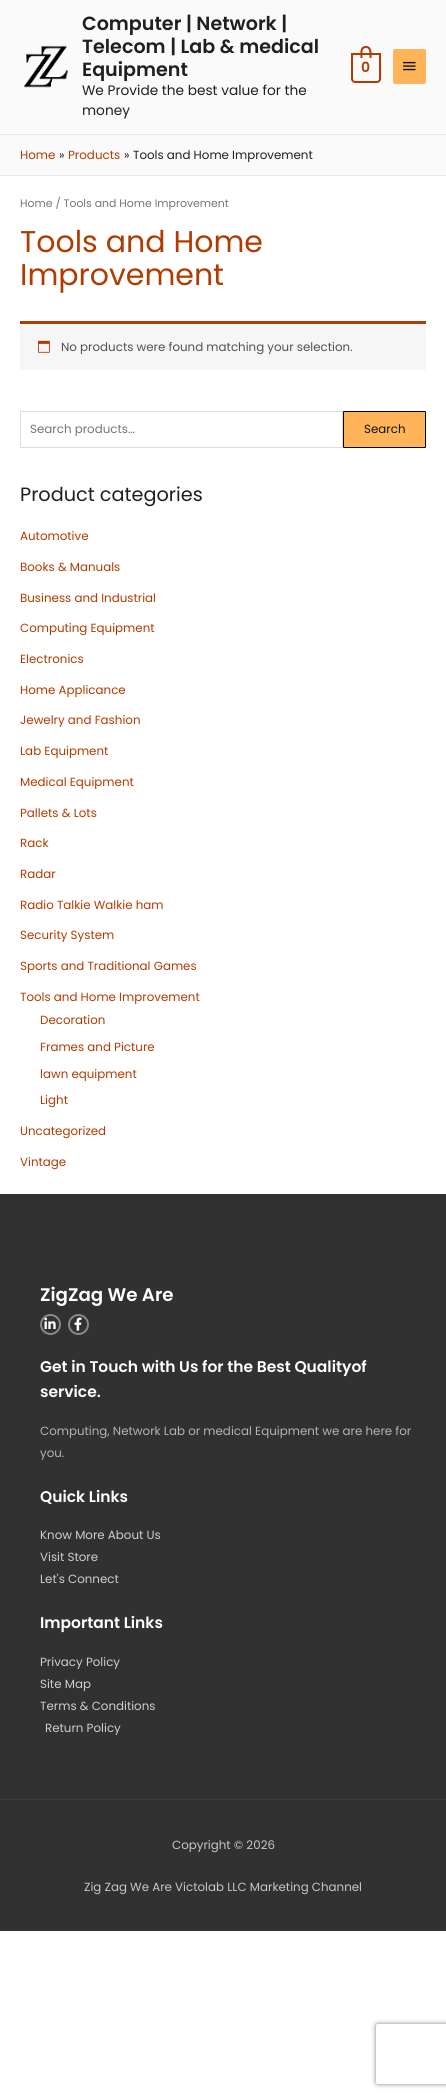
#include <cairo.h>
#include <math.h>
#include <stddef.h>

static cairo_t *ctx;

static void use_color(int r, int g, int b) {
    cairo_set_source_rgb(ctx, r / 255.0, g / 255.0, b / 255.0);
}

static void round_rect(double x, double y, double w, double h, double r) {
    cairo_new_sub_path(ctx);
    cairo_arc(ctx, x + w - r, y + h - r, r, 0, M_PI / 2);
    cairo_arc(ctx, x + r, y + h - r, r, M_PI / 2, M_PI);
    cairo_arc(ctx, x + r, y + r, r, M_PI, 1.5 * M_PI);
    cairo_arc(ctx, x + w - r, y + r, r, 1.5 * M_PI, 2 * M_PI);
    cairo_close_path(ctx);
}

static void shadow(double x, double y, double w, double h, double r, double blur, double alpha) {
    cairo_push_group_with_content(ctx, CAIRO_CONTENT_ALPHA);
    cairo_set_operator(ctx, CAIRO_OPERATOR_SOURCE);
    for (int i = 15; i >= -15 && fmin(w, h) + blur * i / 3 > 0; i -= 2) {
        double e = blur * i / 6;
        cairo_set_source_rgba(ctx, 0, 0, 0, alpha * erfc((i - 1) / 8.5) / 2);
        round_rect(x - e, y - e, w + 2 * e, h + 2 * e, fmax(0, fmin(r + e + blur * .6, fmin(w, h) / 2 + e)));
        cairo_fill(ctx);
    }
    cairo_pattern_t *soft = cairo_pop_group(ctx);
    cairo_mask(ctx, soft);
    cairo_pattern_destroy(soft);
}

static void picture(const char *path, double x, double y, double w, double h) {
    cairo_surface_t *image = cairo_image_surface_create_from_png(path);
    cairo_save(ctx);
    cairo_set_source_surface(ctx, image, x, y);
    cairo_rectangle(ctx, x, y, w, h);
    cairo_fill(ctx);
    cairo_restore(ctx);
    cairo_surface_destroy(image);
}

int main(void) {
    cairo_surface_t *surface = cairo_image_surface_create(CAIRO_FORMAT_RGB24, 446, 2098);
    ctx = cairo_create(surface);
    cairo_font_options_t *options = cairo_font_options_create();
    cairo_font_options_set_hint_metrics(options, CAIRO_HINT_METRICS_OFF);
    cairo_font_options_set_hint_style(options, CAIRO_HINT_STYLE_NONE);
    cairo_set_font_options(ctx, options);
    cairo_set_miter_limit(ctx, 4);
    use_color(255, 255, 255);
    cairo_paint(ctx);
    use_color(250, 250, 250);
    cairo_rectangle(ctx, 0, 0, 446, 134);
    cairo_fill(ctx);
    use_color(233, 233, 233);
    cairo_rectangle(ctx, 0, 134, 446, 1);
    cairo_fill(ctx);
    picture("img1.png", 23, 45, 46, 43);
    cairo_select_font_face(ctx, "Poppins SemiBold", CAIRO_FONT_SLANT_NORMAL, CAIRO_FONT_WEIGHT_NORMAL);
    cairo_set_font_size(ctx, 19.1);
    use_color(30, 31, 31);
    cairo_move_to(ctx, 82, 30);
    cairo_show_text(ctx, "Computer | Network |");
    cairo_move_to(ctx, 82, 53);
    cairo_show_text(ctx, "Telecom | Lab & medical");
    cairo_move_to(ctx, 82, 76);
    cairo_show_text(ctx, "Equipment");
    cairo_select_font_face(ctx, "Poppins", CAIRO_FONT_SLANT_NORMAL, CAIRO_FONT_WEIGHT_NORMAL);
    cairo_set_font_size(ctx, 13.7);
    cairo_move_to(ctx, 82, 95);
    cairo_show_text(ctx, "We Provide the best value for the");
    cairo_move_to(ctx, 82, 115);
    cairo_show_text(ctx, "money");
    cairo_new_path(ctx);
    cairo_move_to(ctx, 352, 54);
    cairo_line_to(ctx, 380, 54);
    cairo_line_to(ctx, 380, 79);
    cairo_curve_to(ctx, 380, 80.5, 378.5, 82, 377, 82);
    cairo_line_to(ctx, 355, 82);
    cairo_curve_to(ctx, 353.5, 82, 352, 80.5, 352, 79);
    cairo_close_path(ctx);
    use_color(178, 59, 0);
    cairo_stroke(ctx);
    cairo_set_fill_rule(ctx, CAIRO_FILL_RULE_EVEN_ODD);
    cairo_new_path(ctx);
    cairo_move_to(ctx, 366, 46);
    cairo_curve_to(ctx, 372.5, 46, 371.5, 53.5, 371.5, 58);
    cairo_line_to(ctx, 360.5, 58);
    cairo_curve_to(ctx, 360.5, 53.5, 359, 46, 366, 46);
    cairo_close_path(ctx);
    cairo_move_to(ctx, 366, 48);
    cairo_curve_to(ctx, 370.5, 48, 369.5, 55, 369.5, 58);
    cairo_line_to(ctx, 362.5, 58);
    cairo_curve_to(ctx, 362.5, 55, 361, 48, 366, 48);
    cairo_close_path(ctx);
    cairo_fill(ctx);
    cairo_select_font_face(ctx, "Poppins SemiBold", CAIRO_FONT_SLANT_NORMAL, CAIRO_FONT_WEIGHT_NORMAL);
    cairo_set_font_size(ctx, 14);
    cairo_move_to(ctx, 361, 72);
    cairo_show_text(ctx, "0");
    use_color(255, 180, 89);
    round_rect(393, 49, 33, 35, 2);
    cairo_fill(ctx);
    picture("img2.png", 403, 61, 13, 10);
    use_color(250, 250, 250);
    cairo_rectangle(ctx, 0, 135, 446, 40);
    cairo_fill(ctx);
    use_color(234, 234, 234);
    cairo_rectangle(ctx, 0, 175, 446, 1);
    cairo_fill(ctx);
    cairo_select_font_face(ctx, "Poppins", CAIRO_FONT_SLANT_NORMAL, CAIRO_FONT_WEIGHT_NORMAL);
    cairo_set_font_size(ctx, 11.85);
    use_color(178, 59, 0);
    cairo_move_to(ctx, 20, 159);
    cairo_show_text(ctx, "Home");
    use_color(30, 31, 31);
    cairo_move_to(ctx, 59, 159);
    cairo_show_text(ctx, "»");
    use_color(178, 59, 0);
    cairo_move_to(ctx, 68, 159);
    cairo_show_text(ctx, "Products");
    use_color(30, 31, 31);
    cairo_move_to(ctx, 124, 159);
    cairo_show_text(ctx, "»");
    cairo_move_to(ctx, 133, 159);
    cairo_show_text(ctx, "Tools and Home Improvement");
    cairo_set_font_size(ctx, 10.9);
    use_color(117, 117, 117);
    cairo_move_to(ctx, 20, 207);
    cairo_show_text(ctx, "Home / Tools and Home Improvement");
    cairo_set_font_size(ctx, 30);
    use_color(178, 59, 0);
    cairo_move_to(ctx, 20, 252);
    cairo_show_text(ctx, "Tools and Home");
    cairo_move_to(ctx, 20, 285);
    cairo_show_text(ctx, "Improvement");
    use_color(247, 246, 247);
    cairo_rectangle(ctx, 20, 324, 406, 46);
    cairo_fill(ctx);
    use_color(178, 59, 0);
    cairo_rectangle(ctx, 20, 321, 406, 3);
    cairo_fill(ctx);
    picture("img3.png", 38, 340, 12, 13);
    cairo_set_font_size(ctx, 11.85);
    use_color(81, 81, 81);
    cairo_move_to(ctx, 61, 351);
    cairo_show_text(ctx, "No products were found matching your selection.");
    cairo_rectangle(ctx, 20.5, 411.5, 322, 36);
    use_color(221, 221, 221);
    cairo_set_line_width(ctx, 1);
    cairo_stroke(ctx);
    use_color(117, 117, 117);
    cairo_move_to(ctx, 30, 433);
    cairo_show_text(ctx, "Search products…");
    use_color(255, 180, 89);
    round_rect(343.5, 411.5, 82, 36, 0.5);
    cairo_fill_preserve(ctx);
    use_color(0, 0, 0);
    cairo_stroke(ctx);
    use_color(15, 17, 17);
    cairo_move_to(ctx, 364, 433);
    cairo_show_text(ctx, "Search");
    cairo_set_font_size(ctx, 19.25);
    use_color(30, 31, 31);
    cairo_move_to(ctx, 20, 501);
    cairo_show_text(ctx, "Product categories");
    cairo_set_font_size(ctx, 11.85);
    use_color(178, 59, 0);
    cairo_move_to(ctx, 20, 540);
    cairo_show_text(ctx, "Automotive");
    cairo_move_to(ctx, 20, 571);
    cairo_show_text(ctx, "Books & Manuals");
    cairo_move_to(ctx, 20, 602);
    cairo_show_text(ctx, "Business and Industrial");
    cairo_move_to(ctx, 20, 632);
    cairo_show_text(ctx, "Computing Equipment");
    cairo_move_to(ctx, 20, 663);
    cairo_show_text(ctx, "Electronics");
    cairo_move_to(ctx, 20, 694);
    cairo_show_text(ctx, "Home Applicance");
    cairo_move_to(ctx, 20, 724);
    cairo_show_text(ctx, "Jewelry and Fashion");
    cairo_move_to(ctx, 20, 755);
    cairo_show_text(ctx, "Lab Equipment");
    cairo_move_to(ctx, 20, 786);
    cairo_show_text(ctx, "Medical Equipment");
    cairo_move_to(ctx, 20, 817);
    cairo_show_text(ctx, "Pallets & Lots");
    cairo_move_to(ctx, 20, 847);
    cairo_show_text(ctx, "Rack");
    cairo_move_to(ctx, 20, 878);
    cairo_show_text(ctx, "Radar");
    cairo_move_to(ctx, 20, 909);
    cairo_show_text(ctx, "Radio Talkie Walkie ham");
    cairo_move_to(ctx, 20, 939);
    cairo_show_text(ctx, "Security System");
    cairo_move_to(ctx, 20, 970);
    cairo_show_text(ctx, "Sports and Traditional Games");
    cairo_move_to(ctx, 20, 1001);
    cairo_show_text(ctx, "Tools and Home Improvement");
    cairo_move_to(ctx, 40, 1024);
    cairo_show_text(ctx, "Decoration");
    cairo_move_to(ctx, 40, 1051);
    cairo_show_text(ctx, "Frames and Picture");
    cairo_move_to(ctx, 40, 1078);
    cairo_show_text(ctx, "lawn equipment");
    cairo_move_to(ctx, 40, 1104);
    cairo_show_text(ctx, "Light");
    cairo_move_to(ctx, 20, 1135);
    cairo_show_text(ctx, "Uncategorized");
    cairo_move_to(ctx, 20, 1166);
    cairo_show_text(ctx, "Vintage");
    use_color(49, 49, 49);
    cairo_rectangle(ctx, 0, 1194, 446, 605);
    cairo_fill(ctx);
    cairo_select_font_face(ctx, "Poppins SemiBold", CAIRO_FONT_SLANT_NORMAL, CAIRO_FONT_WEIGHT_NORMAL);
    cairo_set_font_size(ctx, 18.25);
    use_color(255, 255, 255);
    cairo_move_to(ctx, 40, 1301);
    cairo_show_text(ctx, "ZigZag We Are");
    cairo_new_path(ctx);
    cairo_arc(ctx, 50.5, 1324.5, 9.5, 0, 2 * M_PI);
    use_color(136, 137, 138);
    cairo_set_line_width(ctx, 2);
    cairo_stroke(ctx);
    picture("img4.png", 44, 1317, 12, 12);
    cairo_arc(ctx, 78.5, 1324.5, 9.5, 0, 2 * M_PI);
    cairo_stroke(ctx);
    picture("img5.png", 74, 1317, 8, 14);
    cairo_set_font_size(ctx, 15.5);
    use_color(255, 255, 255);
    cairo_move_to(ctx, 40, 1372);
    cairo_show_text(ctx, "Get in Touch with Us for the Best Qualityof");
    cairo_move_to(ctx, 40, 1397);
    cairo_show_text(ctx, "service.");
    cairo_select_font_face(ctx, "Poppins", CAIRO_FONT_SLANT_NORMAL, CAIRO_FONT_WEIGHT_NORMAL);
    cairo_set_font_size(ctx, 11.85);
    use_color(179, 179, 179);
    cairo_move_to(ctx, 40, 1435);
    cairo_show_text(ctx, "Computing, Network Lab or medical Equipment we are here for");
    cairo_move_to(ctx, 40, 1457);
    cairo_show_text(ctx, "you.");
    cairo_select_font_face(ctx, "Poppins SemiBold", CAIRO_FONT_SLANT_NORMAL, CAIRO_FONT_WEIGHT_NORMAL);
    cairo_set_font_size(ctx, 15.5);
    use_color(255, 255, 255);
    cairo_move_to(ctx, 40, 1502);
    cairo_show_text(ctx, "Quick Links");
    cairo_select_font_face(ctx, "Poppins", CAIRO_FONT_SLANT_NORMAL, CAIRO_FONT_WEIGHT_NORMAL);
    cairo_set_font_size(ctx, 11.85);
    use_color(206, 206, 206);
    cairo_move_to(ctx, 40, 1539);
    cairo_show_text(ctx, "Know More About Us");
    cairo_move_to(ctx, 40, 1561);
    cairo_show_text(ctx, "Visit Store");
    cairo_move_to(ctx, 40, 1583);
    cairo_show_text(ctx, "Let's Connect");
    cairo_select_font_face(ctx, "Poppins SemiBold", CAIRO_FONT_SLANT_NORMAL, CAIRO_FONT_WEIGHT_NORMAL);
    cairo_set_font_size(ctx, 15.5);
    use_color(255, 255, 255);
    cairo_move_to(ctx, 40, 1628);
    cairo_show_text(ctx, "Important Links");
    cairo_select_font_face(ctx, "Poppins", CAIRO_FONT_SLANT_NORMAL, CAIRO_FONT_WEIGHT_NORMAL);
    cairo_set_font_size(ctx, 11.85);
    use_color(206, 206, 206);
    cairo_move_to(ctx, 40, 1666);
    cairo_show_text(ctx, "Privacy Policy");
    cairo_move_to(ctx, 40, 1688);
    cairo_show_text(ctx, "Site Map");
    cairo_move_to(ctx, 40, 1710);
    cairo_show_text(ctx, "Terms & Conditions");
    cairo_move_to(ctx, 45, 1732);
    cairo_show_text(ctx, "Return Policy");
    use_color(49, 49, 49);
    cairo_rectangle(ctx, 0, 1800, 446, 131);
    cairo_fill(ctx);
    use_color(61, 61, 61);
    cairo_rectangle(ctx, 0, 1799, 446, 1);
    cairo_fill(ctx);
    use_color(198, 198, 198);
    cairo_move_to(ctx, 172, 1849);
    cairo_show_text(ctx, "Copyright © 2026");
    cairo_move_to(ctx, 84, 1891);
    cairo_show_text(ctx, "Zig Zag We Are Victolab LLC Marketing Channel");
    cairo_save(ctx);
    cairo_new_path(ctx);
    cairo_move_to(ctx, 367, 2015);
    cairo_line_to(ctx, 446, 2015);
    cairo_line_to(ctx, 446, 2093);
    cairo_line_to(ctx, 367, 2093);
    cairo_close_path(ctx);
    cairo_move_to(ctx, 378, 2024);
    cairo_line_to(ctx, 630, 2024);
    cairo_curve_to(ctx, 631, 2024, 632, 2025, 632, 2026);
    cairo_line_to(ctx, 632, 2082);
    cairo_curve_to(ctx, 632, 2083, 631, 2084, 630, 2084);
    cairo_line_to(ctx, 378, 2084);
    cairo_curve_to(ctx, 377, 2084, 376, 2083, 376, 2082);
    cairo_line_to(ctx, 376, 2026);
    cairo_curve_to(ctx, 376, 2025, 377, 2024, 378, 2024);
    cairo_close_path(ctx);
    cairo_clip(ctx);
    use_color(128, 128, 128);
    shadow(376, 2024, 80, 60, 2, 2.5, 1);
    cairo_restore(ctx);
    cairo_surface_write_to_png(surface, "result.png");
    cairo_font_options_destroy(options);
    cairo_destroy(ctx);
    cairo_surface_destroy(surface);
    return 0;
}
